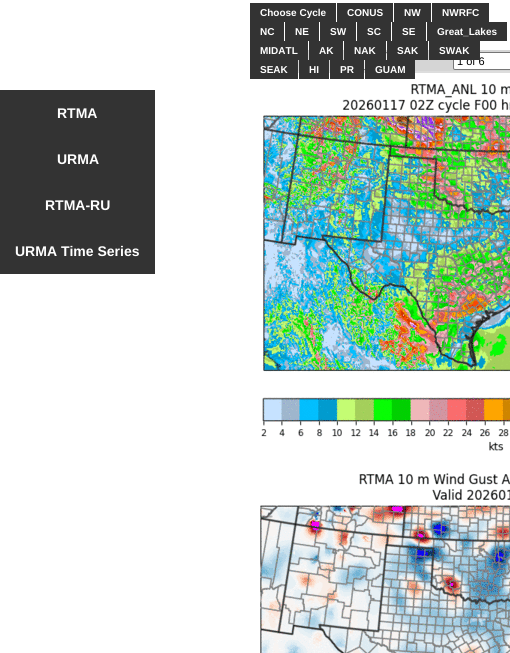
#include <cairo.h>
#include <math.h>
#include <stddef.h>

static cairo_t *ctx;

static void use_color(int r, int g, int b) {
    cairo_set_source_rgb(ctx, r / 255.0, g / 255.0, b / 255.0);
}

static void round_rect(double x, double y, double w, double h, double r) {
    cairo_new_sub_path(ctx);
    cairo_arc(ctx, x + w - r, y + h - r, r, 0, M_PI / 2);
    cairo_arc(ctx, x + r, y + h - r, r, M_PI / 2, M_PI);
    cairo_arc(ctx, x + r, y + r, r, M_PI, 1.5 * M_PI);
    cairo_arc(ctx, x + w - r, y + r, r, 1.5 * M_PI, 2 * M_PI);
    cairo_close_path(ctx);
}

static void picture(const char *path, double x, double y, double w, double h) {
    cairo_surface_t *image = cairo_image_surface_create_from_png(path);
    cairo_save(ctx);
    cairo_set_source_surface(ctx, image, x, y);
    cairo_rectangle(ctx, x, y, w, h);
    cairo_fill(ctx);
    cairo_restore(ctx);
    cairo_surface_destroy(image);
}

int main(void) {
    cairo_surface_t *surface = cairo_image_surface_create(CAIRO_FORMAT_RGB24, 510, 653);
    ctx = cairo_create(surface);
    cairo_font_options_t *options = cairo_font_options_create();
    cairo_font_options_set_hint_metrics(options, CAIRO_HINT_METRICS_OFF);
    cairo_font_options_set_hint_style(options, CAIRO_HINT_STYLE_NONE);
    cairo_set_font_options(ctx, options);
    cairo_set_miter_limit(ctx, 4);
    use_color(255, 255, 255);
    cairo_paint(ctx);
    use_color(51, 51, 51);
    cairo_rectangle(ctx, 250, 3, 86, 19);
    cairo_fill(ctx);
    cairo_select_font_face(ctx, "Liberation Sans", CAIRO_FONT_SLANT_NORMAL, CAIRO_FONT_WEIGHT_BOLD);
    cairo_set_font_size(ctx, 10);
    use_color(255, 255, 255);
    cairo_move_to(ctx, 260, 16);
    cairo_show_text(ctx, "Choose Cycle");
    use_color(51, 51, 51);
    cairo_rectangle(ctx, 337, 3, 56, 19);
    cairo_fill(ctx);
    use_color(255, 255, 255);
    cairo_move_to(ctx, 347, 16);
    cairo_show_text(ctx, "CONUS");
    use_color(51, 51, 51);
    cairo_rectangle(ctx, 394, 3, 37, 19);
    cairo_fill(ctx);
    use_color(255, 255, 255);
    cairo_move_to(ctx, 404, 16);
    cairo_show_text(ctx, "NW");
    use_color(51, 51, 51);
    cairo_rectangle(ctx, 432, 3, 57, 19);
    cairo_fill(ctx);
    use_color(255, 255, 255);
    cairo_move_to(ctx, 442, 16);
    cairo_show_text(ctx, "NWRFC");
    use_color(51, 51, 51);
    cairo_rectangle(ctx, 250, 22, 34, 19);
    cairo_fill(ctx);
    use_color(255, 255, 255);
    cairo_move_to(ctx, 260, 35);
    cairo_show_text(ctx, "NC");
    use_color(51, 51, 51);
    cairo_rectangle(ctx, 285, 22, 34, 19);
    cairo_fill(ctx);
    use_color(255, 255, 255);
    cairo_move_to(ctx, 295, 35);
    cairo_show_text(ctx, "NE");
    use_color(51, 51, 51);
    cairo_rectangle(ctx, 320, 22, 36, 19);
    cairo_fill(ctx);
    use_color(255, 255, 255);
    cairo_move_to(ctx, 330, 35);
    cairo_show_text(ctx, "SW");
    use_color(51, 51, 51);
    cairo_rectangle(ctx, 357, 22, 34, 19);
    cairo_fill(ctx);
    use_color(255, 255, 255);
    cairo_move_to(ctx, 367, 35);
    cairo_show_text(ctx, "SC");
    use_color(51, 51, 51);
    cairo_rectangle(ctx, 392, 22, 34, 19);
    cairo_fill(ctx);
    use_color(255, 255, 255);
    cairo_move_to(ctx, 402, 35);
    cairo_show_text(ctx, "SE");
    use_color(51, 51, 51);
    cairo_rectangle(ctx, 427, 22, 80, 19);
    cairo_fill(ctx);
    use_color(255, 255, 255);
    cairo_move_to(ctx, 437, 35);
    cairo_show_text(ctx, "Great_Lakes");
    use_color(213, 213, 213);
    cairo_rectangle(ctx, 298, 50, 212, 21);
    cairo_fill(ctx);
    use_color(51, 51, 51);
    cairo_rectangle(ctx, 250, 41, 58, 19);
    cairo_fill(ctx);
    use_color(255, 255, 255);
    cairo_move_to(ctx, 260, 54);
    cairo_show_text(ctx, "MIDATL");
    use_color(51, 51, 51);
    cairo_rectangle(ctx, 309, 41, 34, 19);
    cairo_fill(ctx);
    use_color(255, 255, 255);
    cairo_move_to(ctx, 319, 54);
    cairo_show_text(ctx, "AK");
    use_color(239, 239, 239);
    round_rect(350.5, 52.5, 37, 17, 1.5);
    cairo_fill_preserve(ctx);
    use_color(118, 118, 118);
    cairo_set_line_width(ctx, 1);
    cairo_stroke(ctx);
    use_color(51, 51, 51);
    cairo_rectangle(ctx, 344, 41, 42, 19);
    cairo_fill(ctx);
    use_color(255, 255, 255);
    cairo_move_to(ctx, 354, 54);
    cairo_show_text(ctx, "NAK");
    use_color(51, 51, 51);
    cairo_rectangle(ctx, 387, 41, 41, 19);
    cairo_fill(ctx);
    use_color(255, 255, 255);
    cairo_move_to(ctx, 397, 54);
    cairo_show_text(ctx, "SAK");
    round_rect(453.5, 52.5, 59, 17, 1.5);
    cairo_fill_preserve(ctx);
    use_color(118, 118, 118);
    cairo_stroke(ctx);
    cairo_select_font_face(ctx, "Liberation Sans", CAIRO_FONT_SLANT_NORMAL, CAIRO_FONT_WEIGHT_NORMAL);
    cairo_set_font_size(ctx, 11);
    use_color(0, 0, 0);
    cairo_move_to(ctx, 457, 65);
    cairo_show_text(ctx, "1 of 6");
    use_color(51, 51, 51);
    cairo_rectangle(ctx, 429, 41, 51, 19);
    cairo_fill(ctx);
    cairo_select_font_face(ctx, "Liberation Sans", CAIRO_FONT_SLANT_NORMAL, CAIRO_FONT_WEIGHT_BOLD);
    cairo_set_font_size(ctx, 10);
    use_color(255, 255, 255);
    cairo_move_to(ctx, 439, 54);
    cairo_show_text(ctx, "SWAK");
    use_color(51, 51, 51);
    cairo_rectangle(ctx, 250, 60, 48, 19);
    cairo_fill(ctx);
    use_color(255, 255, 255);
    cairo_move_to(ctx, 260, 73);
    cairo_show_text(ctx, "SEAK");
    use_color(221, 221, 221);
    cairo_rectangle(ctx, 298, 71, 212, 2);
    cairo_fill(ctx);
    use_color(51, 51, 51);
    cairo_rectangle(ctx, 299, 60, 30, 19);
    cairo_fill(ctx);
    use_color(255, 255, 255);
    cairo_move_to(ctx, 309, 73);
    cairo_show_text(ctx, "HI");
    use_color(51, 51, 51);
    cairo_rectangle(ctx, 330, 60, 34, 19);
    cairo_fill(ctx);
    use_color(255, 255, 255);
    cairo_move_to(ctx, 340, 73);
    cairo_show_text(ctx, "PR");
    use_color(51, 51, 51);
    cairo_rectangle(ctx, 365, 60, 50, 19);
    cairo_fill(ctx);
    use_color(255, 255, 255);
    cairo_move_to(ctx, 375, 73);
    cairo_show_text(ctx, "GUAM");
    picture("img1.png", 260, 83, 250, 570);
    use_color(51, 51, 51);
    cairo_rectangle(ctx, 0, 90, 155, 184);
    cairo_fill(ctx);
    cairo_set_font_size(ctx, 14);
    use_color(255, 255, 255);
    cairo_move_to(ctx, 57, 118);
    cairo_show_text(ctx, "RTMA");
    cairo_move_to(ctx, 57, 164);
    cairo_show_text(ctx, "URMA");
    cairo_move_to(ctx, 45, 210);
    cairo_show_text(ctx, "RTMA-RU");
    cairo_move_to(ctx, 15, 256);
    cairo_show_text(ctx, "URMA Time Series");
    cairo_surface_write_to_png(surface, "result.png");
    cairo_font_options_destroy(options);
    cairo_destroy(ctx);
    cairo_surface_destroy(surface);
    return 0;
}
